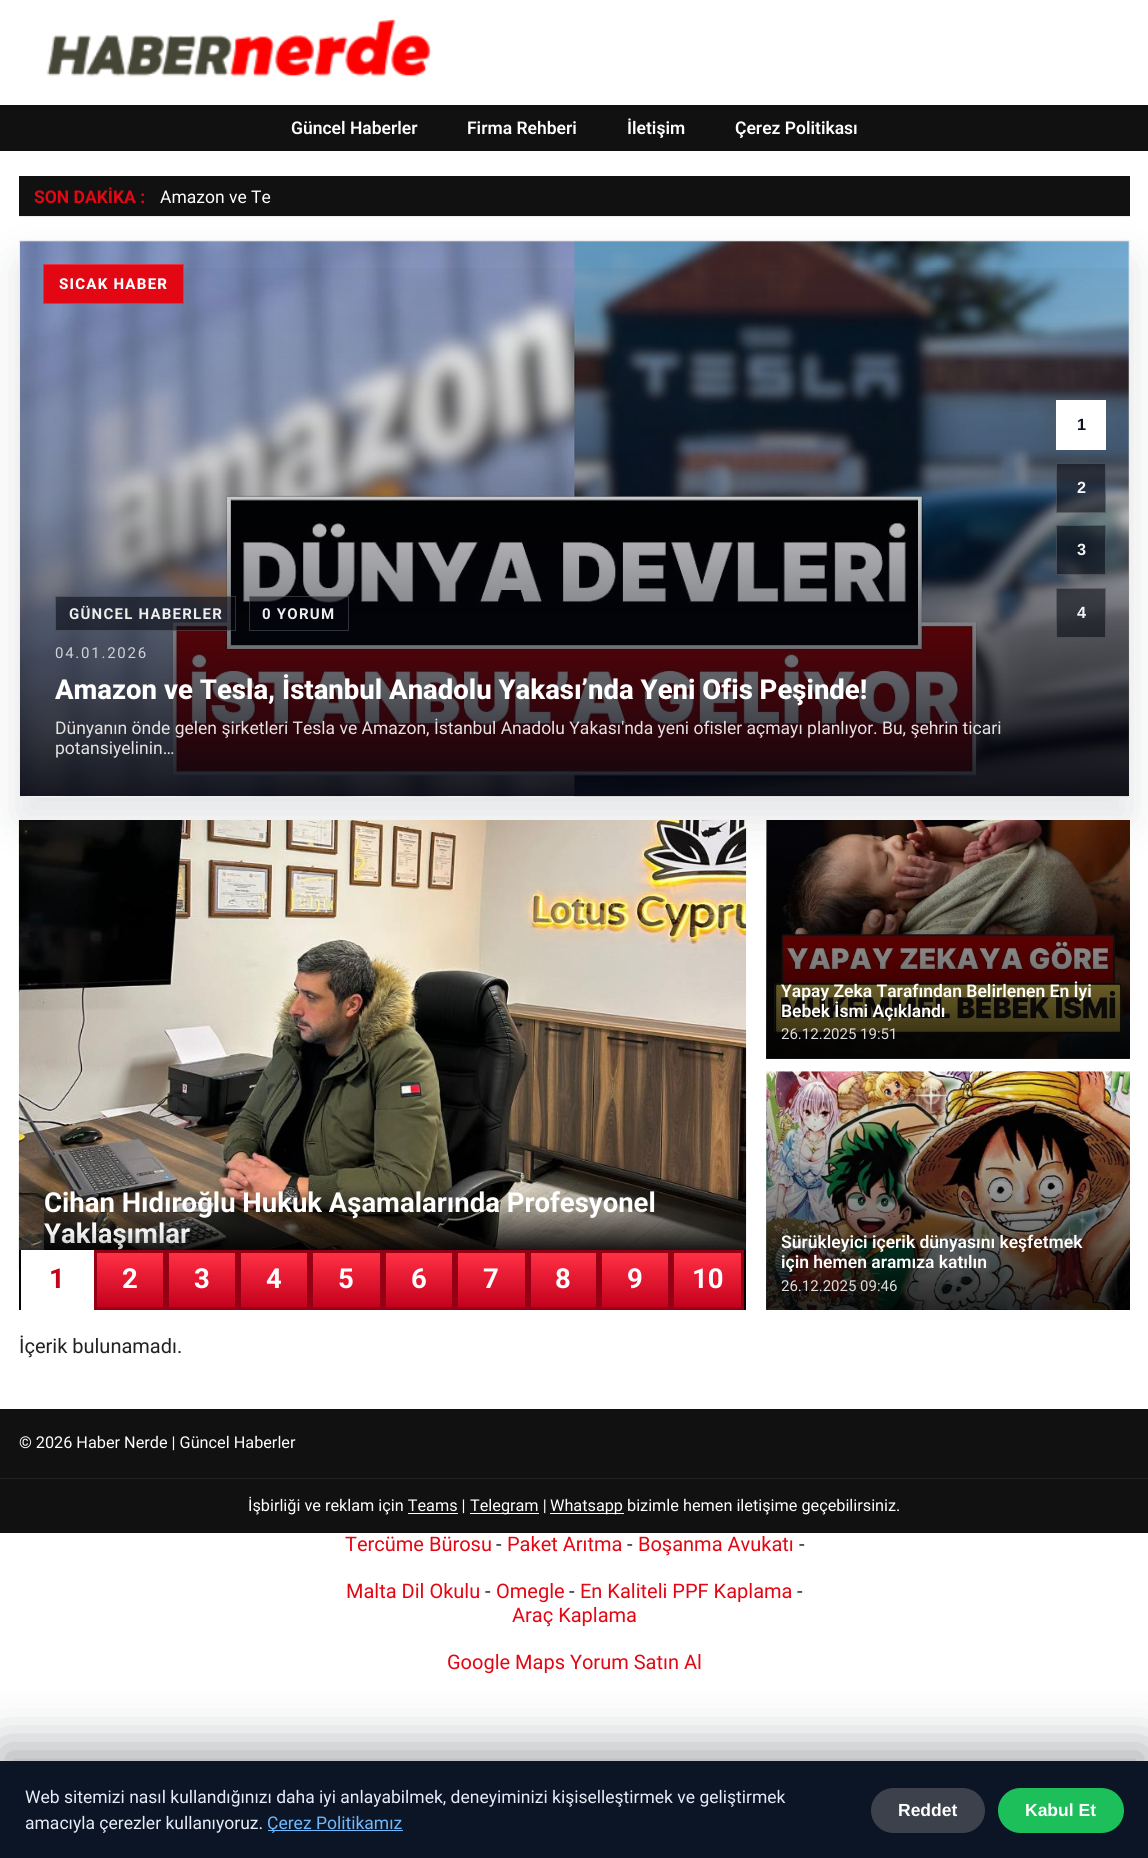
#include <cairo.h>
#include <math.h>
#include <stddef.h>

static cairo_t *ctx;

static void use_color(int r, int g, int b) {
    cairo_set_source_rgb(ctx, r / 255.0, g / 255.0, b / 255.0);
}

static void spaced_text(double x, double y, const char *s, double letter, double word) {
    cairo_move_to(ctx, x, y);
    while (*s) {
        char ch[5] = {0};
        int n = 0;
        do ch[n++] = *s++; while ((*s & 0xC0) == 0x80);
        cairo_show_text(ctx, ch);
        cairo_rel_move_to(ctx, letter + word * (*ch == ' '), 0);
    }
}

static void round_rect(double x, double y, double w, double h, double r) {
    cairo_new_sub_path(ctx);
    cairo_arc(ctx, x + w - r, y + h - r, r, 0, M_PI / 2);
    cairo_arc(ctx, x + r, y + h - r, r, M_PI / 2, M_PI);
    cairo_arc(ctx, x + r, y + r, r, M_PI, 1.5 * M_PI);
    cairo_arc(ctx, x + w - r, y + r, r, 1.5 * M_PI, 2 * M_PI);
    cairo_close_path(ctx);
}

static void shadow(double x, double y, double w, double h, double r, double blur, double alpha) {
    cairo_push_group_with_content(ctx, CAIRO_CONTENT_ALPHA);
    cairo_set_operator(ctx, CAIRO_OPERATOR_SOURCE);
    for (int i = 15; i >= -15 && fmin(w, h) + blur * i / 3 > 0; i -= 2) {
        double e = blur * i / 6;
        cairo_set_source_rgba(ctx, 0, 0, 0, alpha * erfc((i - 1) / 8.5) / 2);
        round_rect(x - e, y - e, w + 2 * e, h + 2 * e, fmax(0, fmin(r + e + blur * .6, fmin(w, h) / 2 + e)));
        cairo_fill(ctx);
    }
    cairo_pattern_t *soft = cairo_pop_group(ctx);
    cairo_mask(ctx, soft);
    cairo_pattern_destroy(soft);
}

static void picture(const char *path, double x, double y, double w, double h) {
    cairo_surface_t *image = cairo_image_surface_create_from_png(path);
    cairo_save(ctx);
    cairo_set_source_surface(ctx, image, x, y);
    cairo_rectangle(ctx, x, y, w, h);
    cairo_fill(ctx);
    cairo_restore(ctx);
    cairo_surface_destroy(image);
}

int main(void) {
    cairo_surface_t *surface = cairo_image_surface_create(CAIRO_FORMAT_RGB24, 1148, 1858);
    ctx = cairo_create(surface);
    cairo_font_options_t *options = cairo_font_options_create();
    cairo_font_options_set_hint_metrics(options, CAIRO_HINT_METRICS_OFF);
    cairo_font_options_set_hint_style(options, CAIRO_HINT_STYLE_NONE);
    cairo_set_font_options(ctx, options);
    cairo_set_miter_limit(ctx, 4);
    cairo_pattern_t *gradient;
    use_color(255, 255, 255);
    cairo_paint(ctx);
    picture("img1.png", 46, 19, 385, 58);
    use_color(17, 17, 17);
    cairo_rectangle(ctx, 0, 105, 1148, 46);
    cairo_fill(ctx);
    cairo_select_font_face(ctx, "Roboto SemiBold", CAIRO_FONT_SLANT_NORMAL, CAIRO_FONT_WEIGHT_NORMAL);
    cairo_set_font_size(ctx, 17.5);
    use_color(255, 255, 255);
    cairo_move_to(ctx, 291, 134);
    cairo_show_text(ctx, "Güncel Haberler");
    cairo_move_to(ctx, 467, 134);
    cairo_show_text(ctx, "Firma Rehberi");
    cairo_move_to(ctx, 627, 134);
    cairo_show_text(ctx, "İletişim");
    cairo_move_to(ctx, 735, 134);
    cairo_show_text(ctx, "Çerez Politikası");
    use_color(237, 237, 237);
    cairo_rectangle(ctx, 19, 216, 1111, 1);
    cairo_fill(ctx);
    use_color(17, 17, 17);
    cairo_rectangle(ctx, 19, 176, 1111, 40);
    cairo_fill(ctx);
    cairo_select_font_face(ctx, "Roboto", CAIRO_FONT_SLANT_NORMAL, CAIRO_FONT_WEIGHT_BOLD);
    use_color(227, 6, 19);
    cairo_move_to(ctx, 34, 203);
    cairo_show_text(ctx, "SON DAKİKA :");
    cairo_select_font_face(ctx, "Roboto", CAIRO_FONT_SLANT_NORMAL, CAIRO_FONT_WEIGHT_NORMAL);
    use_color(255, 255, 255);
    cairo_move_to(ctx, 160, 203);
    cairo_show_text(ctx, "Amazon ve Te");
    use_color(16, 24, 40);
    shadow(19, 263, 1111, 557, 0, 22, 0.12);
    use_color(255, 255, 255);
    cairo_rectangle(ctx, 19.5, 240.5, 1110, 557);
    cairo_fill_preserve(ctx);
    use_color(236, 236, 238);
    cairo_set_line_width(ctx, 1);
    cairo_stroke(ctx);
    picture("img2.png", 20, 241, 1109, 556);
    gradient = cairo_pattern_create_linear(574, 796, 574, 241);
    cairo_pattern_add_color_stop_rgba(gradient, 0, 0.02, 0.027, 0.063, 0.92);
    cairo_pattern_add_color_stop_rgba(gradient, 0.55, 0.02, 0.027, 0.063, 0.2);
    cairo_pattern_add_color_stop_rgba(gradient, 1, 0.02, 0.027, 0.063, 0);
    cairo_set_source(ctx, gradient);
    cairo_pattern_destroy(gradient);
    cairo_rectangle(ctx, 20, 268, 1109, 528);
    cairo_fill(ctx);
    use_color(227, 6, 19);
    cairo_rectangle(ctx, 43.5, 264.5, 140, 39);
    cairo_fill_preserve(ctx);
    use_color(232, 51, 61);
    cairo_stroke(ctx);
    cairo_select_font_face(ctx, "Roboto ExtraBold", CAIRO_FONT_SLANT_NORMAL, CAIRO_FONT_WEIGHT_NORMAL);
    cairo_set_font_size(ctx, 15);
    use_color(255, 255, 255);
    spaced_text(59, 289, "SICAK HABER", 1.25, 0);
    cairo_set_source_rgba(ctx, 0.02, 0.027, 0.063, 0.55);
    cairo_rectangle(ctx, 55, 596, 181, 35);
    cairo_fill(ctx);
    cairo_rectangle(ctx, 55.5, 596.5, 180, 34);
    cairo_set_source_rgba(ctx, 1, 1, 1, 0.18);
    cairo_stroke(ctx);
    cairo_select_font_face(ctx, "Roboto", CAIRO_FONT_SLANT_NORMAL, CAIRO_FONT_WEIGHT_BOLD);
    use_color(238, 238, 239);
    spaced_text(69, 619, "GÜNCEL HABERLER", 1.25, 0);
    cairo_set_source_rgba(ctx, 0.02, 0.027, 0.063, 0.55);
    cairo_rectangle(ctx, 249, 596, 100, 35);
    cairo_fill(ctx);
    cairo_rectangle(ctx, 249.5, 596.5, 99, 34);
    cairo_set_source_rgba(ctx, 1, 1, 1, 0.18);
    cairo_stroke(ctx);
    use_color(238, 238, 239);
    spaced_text(262, 619, "0 YORUM", 1.25, 0);
    cairo_select_font_face(ctx, "Roboto", CAIRO_FONT_SLANT_NORMAL, CAIRO_FONT_WEIGHT_NORMAL);
    use_color(208, 210, 214);
    spaced_text(55, 658, "04.01.2026", 1.75, 0);
    cairo_select_font_face(ctx, "Roboto ExtraBold", CAIRO_FONT_SLANT_NORMAL, CAIRO_FONT_WEIGHT_NORMAL);
    cairo_set_font_size(ctx, 27.5);
    use_color(255, 255, 255);
    cairo_move_to(ctx, 55, 699);
    cairo_show_text(ctx, "Amazon ve Tesla, İstanbul Anadolu Yakası’nda Yeni Ofis Peşinde!");
    cairo_select_font_face(ctx, "Roboto", CAIRO_FONT_SLANT_NORMAL, CAIRO_FONT_WEIGHT_NORMAL);
    cairo_set_font_size(ctx, 17.5);
    use_color(230, 226, 227);
    cairo_move_to(ctx, 55, 734);
    cairo_show_text(ctx, "Dünyanın önde gelen şirketleri Tesla ve Amazon, İstanbul Anadolu Yakası'nda yeni ofisler açmayı planlıyor. Bu, şehrin ticari");
    cairo_move_to(ctx, 55, 754);
    cairo_show_text(ctx, "potansiyelinin…");
    use_color(255, 255, 255);
    cairo_rectangle(ctx, 1056, 400, 50, 50);
    cairo_fill(ctx);
    cairo_select_font_face(ctx, "Liberation Sans", CAIRO_FONT_SLANT_NORMAL, CAIRO_FONT_WEIGHT_BOLD);
    cairo_set_font_size(ctx, 16.25);
    use_color(11, 17, 32);
    cairo_move_to(ctx, 1077, 430);
    cairo_show_text(ctx, "1");
    cairo_set_source_rgba(ctx, 0.02, 0.027, 0.063, 0.55);
    cairo_rectangle(ctx, 1056, 463, 50, 50);
    cairo_fill(ctx);
    cairo_rectangle(ctx, 1056.5, 463.5, 49, 49);
    cairo_set_source_rgba(ctx, 1, 1, 1, 0.18);
    cairo_stroke(ctx);
    use_color(244, 245, 245);
    cairo_move_to(ctx, 1077, 493);
    cairo_show_text(ctx, "2");
    cairo_set_source_rgba(ctx, 0.02, 0.027, 0.063, 0.55);
    cairo_rectangle(ctx, 1056, 525, 50, 50);
    cairo_fill(ctx);
    cairo_rectangle(ctx, 1056.5, 525.5, 49, 49);
    cairo_set_source_rgba(ctx, 1, 1, 1, 0.18);
    cairo_stroke(ctx);
    use_color(244, 245, 245);
    cairo_move_to(ctx, 1077, 555);
    cairo_show_text(ctx, "3");
    cairo_set_source_rgba(ctx, 0.02, 0.027, 0.063, 0.55);
    cairo_rectangle(ctx, 1056, 588, 50, 50);
    cairo_fill(ctx);
    cairo_rectangle(ctx, 1056.5, 588.5, 49, 49);
    cairo_set_source_rgba(ctx, 1, 1, 1, 0.18);
    cairo_stroke(ctx);
    use_color(244, 245, 245);
    cairo_move_to(ctx, 1077, 618);
    cairo_show_text(ctx, "4");
    picture("img3.png", 18, 820, 729, 450);
    cairo_select_font_face(ctx, "Roboto", CAIRO_FONT_SLANT_NORMAL, CAIRO_FONT_WEIGHT_BOLD);
    cairo_set_font_size(ctx, 27.5);
    use_color(255, 255, 255);
    cairo_move_to(ctx, 44, 1212);
    cairo_show_text(ctx, "Cihan Hıdıroğlu Hukuk Aşamalarında Profesyonel");
    cairo_move_to(ctx, 44, 1243);
    cairo_show_text(ctx, "Yaklaşımlar");
    picture("img5.png", 766, 1071, 364, 239);
    gradient = cairo_pattern_create_linear(948, 1310, 948, 1071);
    cairo_pattern_add_color_stop_rgba(gradient, 0, 0, 0, 0, 0.85);
    cairo_pattern_add_color_stop_rgba(gradient, 1, 0, 0, 0, 0);
    cairo_set_source(ctx, gradient);
    cairo_pattern_destroy(gradient);
    cairo_rectangle(ctx, 766, 1077, 364, 233);
    cairo_fill(ctx);
    cairo_save(ctx);
    cairo_rectangle(ctx, 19, 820, 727, 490);
    cairo_clip(ctx);
    use_color(0, 0, 0);
    shadow(19, 1243, 727, 60, 0, 11, 0.35);
    cairo_restore(ctx);
    use_color(5, 5, 5);
    cairo_rectangle(ctx, 19, 1250, 727, 60);
    cairo_fill(ctx);
    use_color(255, 255, 255);
    cairo_rectangle(ctx, 21, 1250, 73, 60);
    cairo_fill(ctx);
    use_color(196, 0, 29);
    cairo_move_to(ctx, 49, 1288);
    cairo_show_text(ctx, "1");
    gradient = cairo_pattern_create_linear(130, 1253, 130, 1308);
    cairo_pattern_add_color_stop_rgba(gradient, 0, 1, 0.188, 0.263, 1);
    cairo_pattern_add_color_stop_rgba(gradient, 1, 0.769, 0, 0.114, 1);
    cairo_set_source(ctx, gradient);
    cairo_pattern_destroy(gradient);
    cairo_rectangle(ctx, 97, 1253, 66, 54);
    cairo_fill(ctx);
    cairo_rectangle(ctx, 95.5, 1251.5, 69, 57);
    use_color(149, 0, 20);
    cairo_set_line_width(ctx, 3);
    cairo_stroke(ctx);
    use_color(255, 255, 255);
    cairo_move_to(ctx, 122, 1288);
    cairo_show_text(ctx, "2");
    gradient = cairo_pattern_create_linear(202, 1253, 202, 1308);
    cairo_pattern_add_color_stop_rgba(gradient, 0, 1, 0.188, 0.263, 1);
    cairo_pattern_add_color_stop_rgba(gradient, 1, 0.769, 0, 0.114, 1);
    cairo_set_source(ctx, gradient);
    cairo_pattern_destroy(gradient);
    cairo_rectangle(ctx, 169, 1253, 66, 54);
    cairo_fill(ctx);
    cairo_rectangle(ctx, 167.5, 1251.5, 69, 57);
    use_color(149, 0, 20);
    cairo_stroke(ctx);
    use_color(255, 255, 255);
    cairo_move_to(ctx, 194, 1288);
    cairo_show_text(ctx, "3");
    gradient = cairo_pattern_create_linear(274, 1253, 274, 1308);
    cairo_pattern_add_color_stop_rgba(gradient, 0, 1, 0.188, 0.263, 1);
    cairo_pattern_add_color_stop_rgba(gradient, 1, 0.769, 0, 0.114, 1);
    cairo_set_source(ctx, gradient);
    cairo_pattern_destroy(gradient);
    cairo_rectangle(ctx, 241, 1253, 66, 54);
    cairo_fill(ctx);
    cairo_rectangle(ctx, 239.5, 1251.5, 69, 57);
    use_color(149, 0, 20);
    cairo_stroke(ctx);
    use_color(255, 255, 255);
    cairo_move_to(ctx, 266, 1288);
    cairo_show_text(ctx, "4");
    gradient = cairo_pattern_create_linear(346, 1253, 346, 1308);
    cairo_pattern_add_color_stop_rgba(gradient, 0, 1, 0.188, 0.263, 1);
    cairo_pattern_add_color_stop_rgba(gradient, 1, 0.769, 0, 0.114, 1);
    cairo_set_source(ctx, gradient);
    cairo_pattern_destroy(gradient);
    cairo_rectangle(ctx, 313, 1253, 67, 54);
    cairo_fill(ctx);
    cairo_rectangle(ctx, 311.5, 1251.5, 70, 57);
    use_color(149, 0, 20);
    cairo_stroke(ctx);
    use_color(255, 255, 255);
    cairo_move_to(ctx, 338, 1288);
    cairo_show_text(ctx, "5");
    gradient = cairo_pattern_create_linear(419, 1253, 419, 1308);
    cairo_pattern_add_color_stop_rgba(gradient, 0, 1, 0.188, 0.263, 1);
    cairo_pattern_add_color_stop_rgba(gradient, 1, 0.769, 0, 0.114, 1);
    cairo_set_source(ctx, gradient);
    cairo_pattern_destroy(gradient);
    cairo_rectangle(ctx, 386, 1253, 66, 54);
    cairo_fill(ctx);
    cairo_rectangle(ctx, 384.5, 1251.5, 69, 57);
    use_color(149, 0, 20);
    cairo_stroke(ctx);
    use_color(255, 255, 255);
    cairo_move_to(ctx, 411, 1288);
    cairo_show_text(ctx, "6");
    gradient = cairo_pattern_create_linear(491, 1253, 491, 1308);
    cairo_pattern_add_color_stop_rgba(gradient, 0, 1, 0.188, 0.263, 1);
    cairo_pattern_add_color_stop_rgba(gradient, 1, 0.769, 0, 0.114, 1);
    cairo_set_source(ctx, gradient);
    cairo_pattern_destroy(gradient);
    cairo_rectangle(ctx, 458, 1253, 67, 54);
    cairo_fill(ctx);
    cairo_rectangle(ctx, 456.5, 1251.5, 70, 57);
    use_color(149, 0, 20);
    cairo_stroke(ctx);
    use_color(255, 255, 255);
    cairo_move_to(ctx, 483, 1288);
    cairo_show_text(ctx, "7");
    gradient = cairo_pattern_create_linear(563, 1253, 563, 1308);
    cairo_pattern_add_color_stop_rgba(gradient, 0, 1, 0.188, 0.263, 1);
    cairo_pattern_add_color_stop_rgba(gradient, 1, 0.769, 0, 0.114, 1);
    cairo_set_source(ctx, gradient);
    cairo_pattern_destroy(gradient);
    cairo_rectangle(ctx, 531, 1253, 65, 54);
    cairo_fill(ctx);
    cairo_rectangle(ctx, 529.5, 1251.5, 68, 57);
    use_color(149, 0, 20);
    cairo_stroke(ctx);
    use_color(255, 255, 255);
    cairo_move_to(ctx, 555, 1288);
    cairo_show_text(ctx, "8");
    gradient = cairo_pattern_create_linear(635, 1253, 635, 1308);
    cairo_pattern_add_color_stop_rgba(gradient, 0, 1, 0.188, 0.263, 1);
    cairo_pattern_add_color_stop_rgba(gradient, 1, 0.769, 0, 0.114, 1);
    cairo_set_source(ctx, gradient);
    cairo_pattern_destroy(gradient);
    cairo_rectangle(ctx, 602, 1253, 66, 54);
    cairo_fill(ctx);
    cairo_rectangle(ctx, 600.5, 1251.5, 69, 57);
    use_color(149, 0, 20);
    cairo_stroke(ctx);
    use_color(255, 255, 255);
    cairo_move_to(ctx, 627, 1288);
    cairo_show_text(ctx, "9");
    gradient = cairo_pattern_create_linear(708, 1253, 708, 1308);
    cairo_pattern_add_color_stop_rgba(gradient, 0, 1, 0.188, 0.263, 1);
    cairo_pattern_add_color_stop_rgba(gradient, 1, 0.769, 0, 0.114, 1);
    cairo_set_source(ctx, gradient);
    cairo_pattern_destroy(gradient);
    cairo_rectangle(ctx, 674, 1253, 67, 54);
    cairo_fill(ctx);
    cairo_rectangle(ctx, 672.5, 1251.5, 70, 57);
    use_color(149, 0, 20);
    cairo_stroke(ctx);
    use_color(255, 255, 255);
    cairo_move_to(ctx, 692, 1288);
    cairo_show_text(ctx, "10");
    picture("img4.png", 766, 820, 364, 239);
    gradient = cairo_pattern_create_linear(948, 1059, 948, 820);
    cairo_pattern_add_color_stop_rgba(gradient, 0, 0, 0, 0, 0.85);
    cairo_pattern_add_color_stop_rgba(gradient, 1, 0, 0, 0, 0);
    cairo_set_source(ctx, gradient);
    cairo_pattern_destroy(gradient);
    cairo_rectangle(ctx, 766, 826, 364, 233);
    cairo_fill(ctx);
    cairo_select_font_face(ctx, "Roboto SemiBold", CAIRO_FONT_SLANT_NORMAL, CAIRO_FONT_WEIGHT_NORMAL);
    cairo_set_font_size(ctx, 17.5);
    use_color(255, 255, 255);
    cairo_move_to(ctx, 781, 997);
    cairo_show_text(ctx, "Yapay Zeka Tarafından Belirlenen En İyi");
    cairo_move_to(ctx, 781, 1017);
    cairo_show_text(ctx, "Bebek İsmi Açıklandı");
    cairo_select_font_face(ctx, "Roboto", CAIRO_FONT_SLANT_NORMAL, CAIRO_FONT_WEIGHT_NORMAL);
    cairo_set_font_size(ctx, 15);
    use_color(221, 220, 218);
    cairo_move_to(ctx, 781, 1039);
    cairo_show_text(ctx, "26.12.2025 19:51");
    cairo_select_font_face(ctx, "Roboto SemiBold", CAIRO_FONT_SLANT_NORMAL, CAIRO_FONT_WEIGHT_NORMAL);
    cairo_set_font_size(ctx, 17.5);
    use_color(255, 255, 255);
    cairo_move_to(ctx, 781, 1248);
    cairo_show_text(ctx, "Sürükleyici içerik dünyasını keşfetmek");
    cairo_move_to(ctx, 781, 1268);
    cairo_show_text(ctx, "için hemen aramıza katılın");
    cairo_select_font_face(ctx, "Roboto", CAIRO_FONT_SLANT_NORMAL, CAIRO_FONT_WEIGHT_NORMAL);
    cairo_set_font_size(ctx, 15);
    use_color(221, 220, 218);
    cairo_move_to(ctx, 781, 1291);
    cairo_show_text(ctx, "26.12.2025 09:46");
    cairo_set_font_size(ctx, 20);
    use_color(34, 34, 34);
    cairo_move_to(ctx, 19, 1353);
    cairo_show_text(ctx, "İçerik bulunamadı.");
    use_color(17, 17, 17);
    cairo_rectangle(ctx, 0, 1409, 1148, 69);
    cairo_fill(ctx);
    cairo_set_font_size(ctx, 16.25);
    use_color(255, 255, 255);
    cairo_move_to(ctx, 19, 1448);
    cairo_show_text(ctx, "© 2026 Haber Nerde | Güncel Haberler");
    use_color(17, 17, 17);
    cairo_rectangle(ctx, 0, 1479, 1148, 54);
    cairo_fill(ctx);
    use_color(36, 36, 36);
    cairo_rectangle(ctx, 0, 1478, 1148, 1);
    cairo_fill(ctx);
    use_color(255, 255, 255);
    cairo_move_to(ctx, 248, 1511);
    cairo_show_text(ctx, "İşbirliği ve reklam için Teams |");
    cairo_rectangle(ctx, 470, 1513, 69, 1);
    cairo_fill(ctx);
    cairo_move_to(ctx, 470, 1511);
    cairo_show_text(ctx, "Telegram |");
    cairo_rectangle(ctx, 550, 1513, 74, 1);
    cairo_fill(ctx);
    cairo_move_to(ctx, 550, 1511);
    cairo_show_text(ctx, "Whatsapp bizimle hemen iletişime geçebilirsiniz.");
    cairo_rectangle(ctx, 408, 1513, 50, 1);
    cairo_fill(ctx);
    cairo_set_font_size(ctx, 20);
    use_color(227, 6, 19);
    cairo_move_to(ctx, 345, 1551);
    cairo_show_text(ctx, "Tercüme Bürosu");
    use_color(34, 34, 34);
    cairo_move_to(ctx, 496, 1551);
    cairo_show_text(ctx, "-");
    use_color(227, 6, 19);
    cairo_move_to(ctx, 507, 1551);
    cairo_show_text(ctx, "Paket Arıtma");
    use_color(34, 34, 34);
    cairo_move_to(ctx, 627, 1551);
    cairo_show_text(ctx, "-");
    use_color(227, 6, 19);
    cairo_move_to(ctx, 638, 1551);
    cairo_show_text(ctx, "Boşanma Avukatı");
    use_color(34, 34, 34);
    cairo_move_to(ctx, 799, 1551);
    cairo_show_text(ctx, "-");
    use_color(227, 6, 19);
    cairo_move_to(ctx, 346, 1598);
    cairo_show_text(ctx, "Malta Dil Okulu");
    use_color(34, 34, 34);
    cairo_move_to(ctx, 485, 1598);
    cairo_show_text(ctx, "-");
    use_color(227, 6, 19);
    cairo_move_to(ctx, 496, 1598);
    cairo_show_text(ctx, "Omegle");
    use_color(34, 34, 34);
    cairo_move_to(ctx, 569, 1598);
    cairo_show_text(ctx, "-");
    use_color(227, 6, 19);
    cairo_move_to(ctx, 580, 1598);
    cairo_show_text(ctx, "En Kaliteli PPF Kaplama");
    use_color(34, 34, 34);
    cairo_move_to(ctx, 797, 1598);
    cairo_show_text(ctx, "-");
    use_color(227, 6, 19);
    cairo_move_to(ctx, 512, 1622);
    cairo_show_text(ctx, "Araç Kaplama");
    cairo_move_to(ctx, 447, 1669);
    cairo_show_text(ctx, "Google Maps Yorum Satın Al");
    use_color(12, 21, 34);
    shadow(0, 1746, 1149, 98, 0, 25, 0.35);
    use_color(11, 21, 38);
    cairo_rectangle(ctx, 0, 1761, 1148, 97);
    cairo_fill(ctx);
    cairo_set_font_size(ctx, 17.5);
    use_color(231, 236, 246);
    cairo_move_to(ctx, 25, 1803);
    cairo_show_text(ctx, "Web sitemizi nasıl kullandığınızı daha iyi anlayabilmek, deneyiminizi kişiselleştirmek ve geliştirmek");
    cairo_move_to(ctx, 25, 1829);
    cairo_show_text(ctx, "amacıyla çerezler kullanıyoruz.");
    use_color(111, 185, 255);
    cairo_rectangle(ctx, 268, 1830, 135, 1);
    cairo_fill(ctx);
    cairo_move_to(ctx, 267, 1829);
    cairo_show_text(ctx, "Çerez Politikamız");
    use_color(60, 65, 75);
    round_rect(871, 1788, 114, 45, 22.5);
    cairo_fill(ctx);
    cairo_select_font_face(ctx, "Liberation Sans", CAIRO_FONT_SLANT_NORMAL, CAIRO_FONT_WEIGHT_BOLD);
    use_color(255, 255, 255);
    cairo_move_to(ctx, 898, 1816);
    cairo_show_text(ctx, "Reddet");
    use_color(29, 191, 91);
    round_rect(998, 1788, 126, 45, 22.5);
    cairo_fill(ctx);
    use_color(255, 255, 255);
    cairo_move_to(ctx, 1025, 1816);
    cairo_show_text(ctx, "Kabul Et");
    cairo_surface_write_to_png(surface, "result.png");
    cairo_font_options_destroy(options);
    cairo_destroy(ctx);
    cairo_surface_destroy(surface);
    return 0;
}
